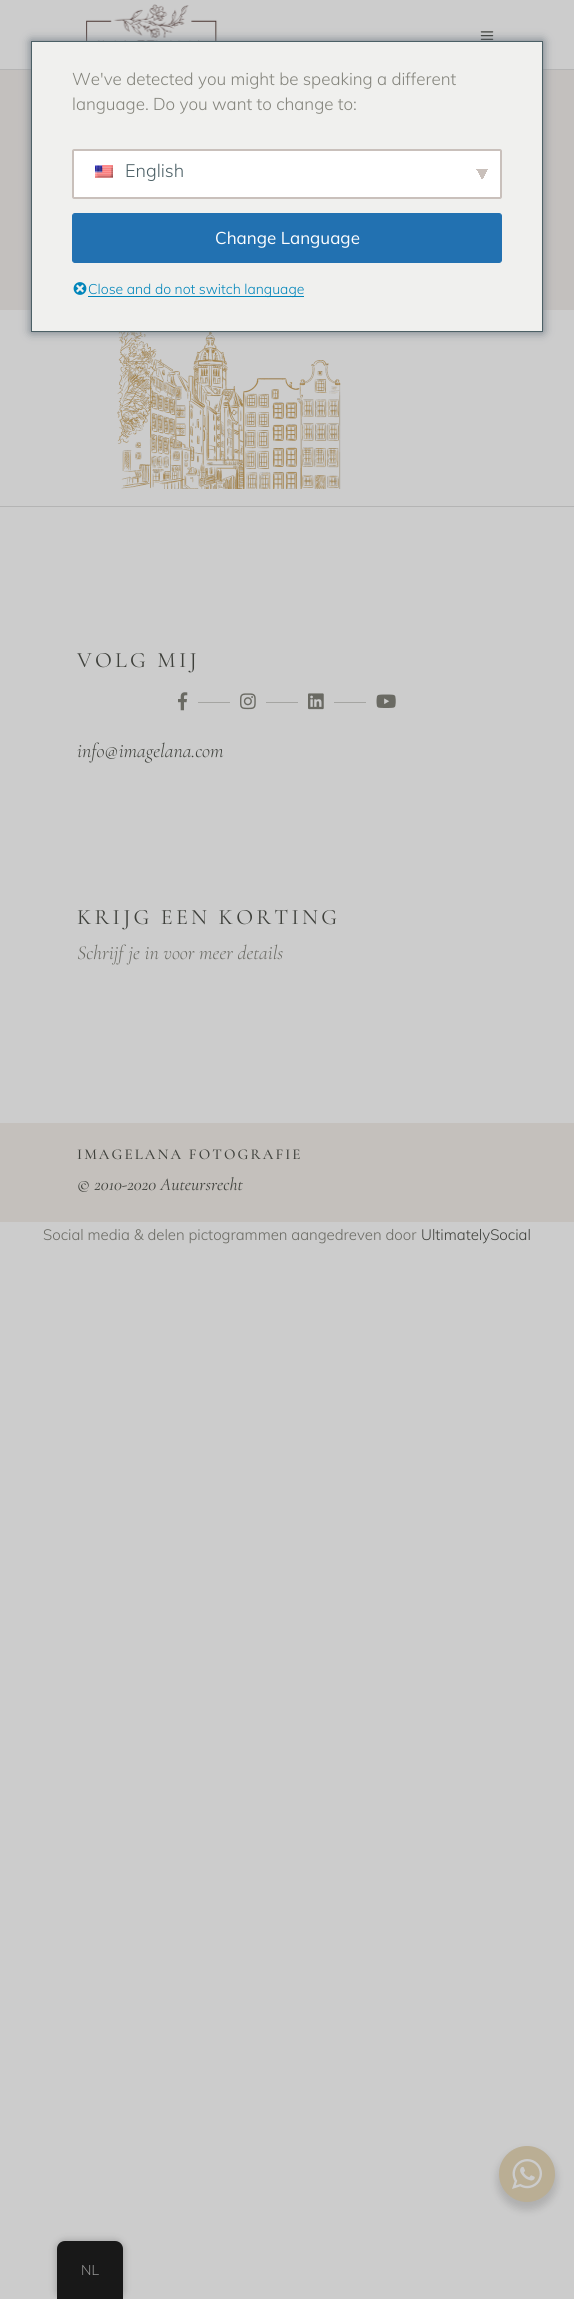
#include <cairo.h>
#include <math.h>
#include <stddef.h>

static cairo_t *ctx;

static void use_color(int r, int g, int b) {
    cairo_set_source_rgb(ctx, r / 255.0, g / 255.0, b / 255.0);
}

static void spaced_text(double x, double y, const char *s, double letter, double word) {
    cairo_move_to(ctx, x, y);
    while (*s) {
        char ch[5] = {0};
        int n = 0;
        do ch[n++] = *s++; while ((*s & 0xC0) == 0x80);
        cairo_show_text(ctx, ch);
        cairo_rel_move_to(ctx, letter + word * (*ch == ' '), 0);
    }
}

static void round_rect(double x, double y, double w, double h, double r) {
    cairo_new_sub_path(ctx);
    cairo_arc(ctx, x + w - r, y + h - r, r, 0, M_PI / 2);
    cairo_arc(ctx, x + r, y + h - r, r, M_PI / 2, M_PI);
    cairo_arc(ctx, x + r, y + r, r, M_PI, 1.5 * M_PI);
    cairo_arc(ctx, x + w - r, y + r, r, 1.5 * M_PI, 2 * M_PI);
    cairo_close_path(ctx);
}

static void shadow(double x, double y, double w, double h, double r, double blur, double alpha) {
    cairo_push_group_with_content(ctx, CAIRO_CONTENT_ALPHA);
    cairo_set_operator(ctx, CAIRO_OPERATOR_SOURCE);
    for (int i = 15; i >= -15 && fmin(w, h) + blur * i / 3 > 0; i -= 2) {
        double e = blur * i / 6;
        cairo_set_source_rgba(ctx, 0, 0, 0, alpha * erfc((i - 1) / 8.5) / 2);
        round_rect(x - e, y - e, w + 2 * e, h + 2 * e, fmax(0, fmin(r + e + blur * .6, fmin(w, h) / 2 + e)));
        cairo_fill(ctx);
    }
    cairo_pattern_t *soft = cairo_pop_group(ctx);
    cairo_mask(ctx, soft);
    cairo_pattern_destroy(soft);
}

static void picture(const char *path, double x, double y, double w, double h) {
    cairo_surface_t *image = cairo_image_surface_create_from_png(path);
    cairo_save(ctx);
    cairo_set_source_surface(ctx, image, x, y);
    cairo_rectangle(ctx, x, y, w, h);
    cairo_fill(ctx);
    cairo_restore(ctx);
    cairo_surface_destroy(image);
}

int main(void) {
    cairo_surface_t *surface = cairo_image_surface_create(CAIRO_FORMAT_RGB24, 574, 2299);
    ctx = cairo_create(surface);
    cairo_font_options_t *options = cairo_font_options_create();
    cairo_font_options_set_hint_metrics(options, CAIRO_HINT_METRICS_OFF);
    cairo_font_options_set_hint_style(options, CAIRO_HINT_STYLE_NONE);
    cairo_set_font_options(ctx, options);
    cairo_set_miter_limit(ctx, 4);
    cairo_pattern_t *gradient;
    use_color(204, 204, 204);
    cairo_paint(ctx);
    use_color(180, 180, 180);
    cairo_rectangle(ctx, 0, 69, 574, 1);
    cairo_fill(ctx);
    picture("img3.png", 77, 4, 149, 37);
    picture("img4.png", 480, 31, 14, 9);
    use_color(195, 192, 190);
    cairo_rectangle(ctx, 0, 70, 574, 240);
    cairo_fill(ctx);
    picture("img5.png", 117, 332, 224, 157);
    use_color(108, 119, 129);
    shadow(31, 41, 512, 291, 0, 5, 1);
    use_color(240, 240, 238);
    cairo_rectangle(ctx, 31.5, 41.5, 511, 290);
    cairo_fill_preserve(ctx);
    use_color(76, 96, 102);
    cairo_set_line_width(ctx, 1);
    cairo_stroke(ctx);
    cairo_select_font_face(ctx, "Muli Light", CAIRO_FONT_SLANT_NORMAL, CAIRO_FONT_WEIGHT_NORMAL);
    cairo_set_font_size(ctx, 17);
    use_color(132, 132, 124);
    cairo_move_to(ctx, 72, 85);
    cairo_show_text(ctx, "We've detected you might be speaking a different");
    cairo_move_to(ctx, 72, 110);
    cairo_show_text(ctx, "language. Do you want to change to:");
    use_color(255, 255, 255);
    round_rect(72, 149, 430, 50, 2);
    cairo_fill(ctx);
    gradient = cairo_pattern_create_linear(480, 172, 490, 177);
    cairo_pattern_add_color_stop_rgba(gradient, 0.5, 0.788, 0.753, 0.733, 1);
    cairo_pattern_add_color_stop_rgba(gradient, 0.5, 1, 1, 1, 1);
    cairo_set_source(ctx, gradient);
    cairo_pattern_destroy(gradient);
    cairo_rectangle(ctx, 482, 169, 6, 12);
    cairo_fill(ctx);
    gradient = cairo_pattern_create_linear(474, 177, 484, 172);
    cairo_pattern_add_color_stop_rgba(gradient, 0.5, 1, 1, 1, 1);
    cairo_pattern_add_color_stop_rgba(gradient, 0.5, 0.788, 0.753, 0.733, 1);
    cairo_set_source(ctx, gradient);
    cairo_pattern_destroy(gradient);
    cairo_rectangle(ctx, 476, 169, 6, 12);
    cairo_fill(ctx);
    round_rect(73, 150, 428, 48, 1);
    use_color(201, 192, 187);
    cairo_set_line_width(ctx, 2);
    cairo_stroke(ctx);
    picture("img1.png", 95, 165, 18, 13);
    cairo_set_font_size(ctx, 18);
    use_color(76, 96, 102);
    cairo_move_to(ctx, 125, 177);
    cairo_show_text(ctx, "English");
    use_color(34, 113, 177);
    round_rect(72.5, 213.5, 429, 49, 2.5);
    cairo_fill_preserve(ctx);
    cairo_set_line_width(ctx, 1);
    cairo_stroke(ctx);
    cairo_select_font_face(ctx, "Muli", CAIRO_FONT_SLANT_NORMAL, CAIRO_FONT_WEIGHT_NORMAL);
    cairo_set_font_size(ctx, 17);
    use_color(255, 255, 255);
    cairo_move_to(ctx, 215, 244);
    cairo_show_text(ctx, "Change Language");
    picture("img2.png", 73, 282, 14, 13);
    use_color(0, 133, 186);
    cairo_rectangle(ctx, 88, 296, 216, 1);
    cairo_fill(ctx);
    cairo_select_font_face(ctx, "Muli Light", CAIRO_FONT_SLANT_NORMAL, CAIRO_FONT_WEIGHT_NORMAL);
    cairo_set_font_size(ctx, 14);
    cairo_move_to(ctx, 88, 294);
    cairo_show_text(ctx, "Close and do not switch language");
    use_color(180, 180, 180);
    cairo_rectangle(ctx, 0, 506, 574, 1);
    cairo_fill(ctx);
    cairo_select_font_face(ctx, "Cormorant Garamond", CAIRO_FONT_SLANT_NORMAL, CAIRO_FONT_WEIGHT_NORMAL);
    cairo_set_font_size(ctx, 22);
    use_color(62, 64, 59);
    spaced_text(77, 667, "VOLG MIJ", 3.25, 0);
    picture("img6.png", 178, 692, 10, 19);
    use_color(165, 165, 162);
    cairo_rectangle(ctx, 198, 702, 32, 1);
    cairo_fill(ctx);
    picture("img7.png", 240, 693, 16, 17);
    cairo_rectangle(ctx, 266, 702, 32, 1);
    cairo_fill(ctx);
    picture("img8.png", 308, 693, 16, 17);
    cairo_rectangle(ctx, 334, 702, 32, 1);
    cairo_fill(ctx);
    picture("img9.png", 376, 694, 20, 14);
    cairo_select_font_face(ctx, "Cormorant Garamond Light", CAIRO_FONT_SLANT_ITALIC, CAIRO_FONT_WEIGHT_NORMAL);
    cairo_set_font_size(ctx, 20);
    use_color(62, 64, 59);
    cairo_move_to(ctx, 77, 757);
    cairo_show_text(ctx, "info@imagelana.com");
    cairo_select_font_face(ctx, "Cormorant Garamond", CAIRO_FONT_SLANT_NORMAL, CAIRO_FONT_WEIGHT_NORMAL);
    cairo_set_font_size(ctx, 22);
    spaced_text(77, 924, "KRIJG EEN KORTING", 3.25, 0);
    cairo_select_font_face(ctx, "Cormorant Garamond Light", CAIRO_FONT_SLANT_ITALIC, CAIRO_FONT_WEIGHT_NORMAL);
    cairo_set_font_size(ctx, 20);
    use_color(106, 106, 99);
    cairo_move_to(ctx, 77, 959);
    cairo_show_text(ctx, "Schrijf je in voor meer details");
    use_color(196, 192, 188);
    cairo_rectangle(ctx, 0, 1123, 574, 99);
    cairo_fill(ctx);
    cairo_select_font_face(ctx, "Cormorant Garamond Medium", CAIRO_FONT_SLANT_NORMAL, CAIRO_FONT_WEIGHT_NORMAL);
    cairo_set_font_size(ctx, 15);
    use_color(62, 64, 59);
    spaced_text(77, 1159, "IMAGELANA FOTOGRAFIE", 2.1, 0);
    cairo_select_font_face(ctx, "Cormorant Garamond", CAIRO_FONT_SLANT_ITALIC, CAIRO_FONT_WEIGHT_NORMAL);
    cairo_set_font_size(ctx, 18);
    cairo_move_to(ctx, 77, 1190);
    cairo_show_text(ctx, "© 2010-2020 Auteursrecht");
    cairo_select_font_face(ctx, "Muli Light", CAIRO_FONT_SLANT_NORMAL, CAIRO_FONT_WEIGHT_NORMAL);
    cairo_set_font_size(ctx, 15);
    use_color(106, 106, 99);
    cairo_move_to(ctx, 43, 1240);
    cairo_show_text(ctx, "Social media & delen pictogrammen aangedreven door");
    use_color(62, 64, 59);
    cairo_move_to(ctx, 421, 1240);
    cairo_show_text(ctx, "UltimatelySocial");
    use_color(0, 0, 0);
    shadow(497, 2150, 60, 60, 30, 4, 0.14);
    use_color(186, 174, 148);
    cairo_arc(ctx, 527, 2174, 28, 0, 2 * M_PI);
    cairo_fill(ctx);
    picture("img10.png", 512, 2159, 30, 30);
    use_color(0, 0, 0);
    shadow(57, 2241, 66, 58, 8, 4, 0.25);
    use_color(24, 24, 24);
    cairo_new_path(ctx);
    cairo_move_to(ctx, 65, 2241);
    cairo_line_to(ctx, 115, 2241);
    cairo_curve_to(ctx, 119.5, 2241, 123, 2244.5, 123, 2249);
    cairo_line_to(ctx, 123, 2299);
    cairo_line_to(ctx, 57, 2299);
    cairo_line_to(ctx, 57, 2249);
    cairo_curve_to(ctx, 57, 2244.5, 60.5, 2241, 65, 2241);
    cairo_close_path(ctx);
    cairo_fill(ctx);
    cairo_set_font_size(ctx, 14);
    use_color(151, 151, 151);
    cairo_move_to(ctx, 81, 2275);
    cairo_show_text(ctx, "NL");
    cairo_surface_write_to_png(surface, "result.png");
    cairo_font_options_destroy(options);
    cairo_destroy(ctx);
    cairo_surface_destroy(surface);
    return 0;
}
